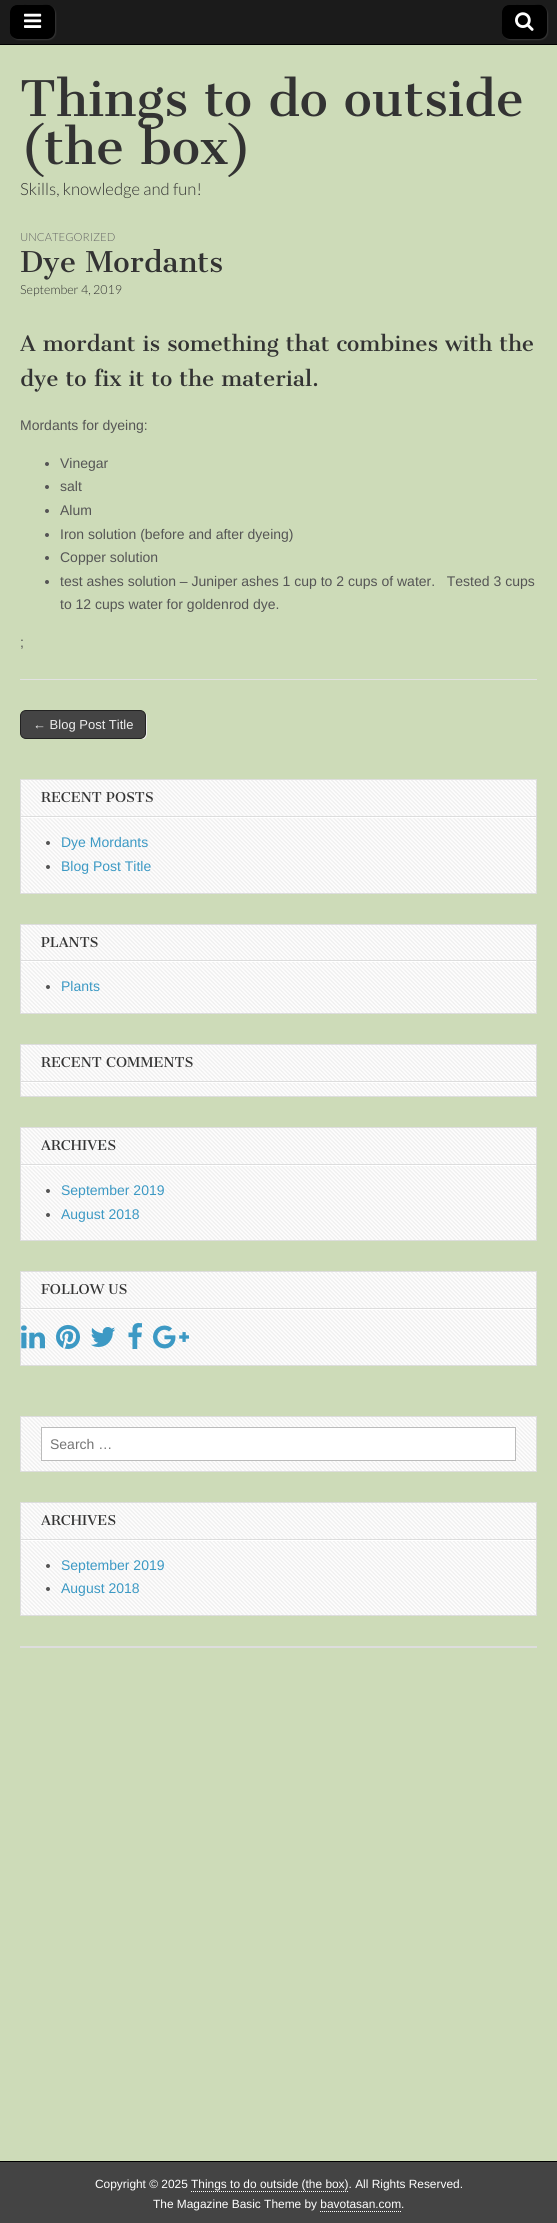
#include <cairo.h>
#include <math.h>
#include <stddef.h>

static cairo_t *ctx;

static void use_color(int r, int g, int b) {
    cairo_set_source_rgb(ctx, r / 255.0, g / 255.0, b / 255.0);
}

static void round_rect(double x, double y, double w, double h, double r) {
    cairo_new_sub_path(ctx);
    cairo_arc(ctx, x + w - r, y + h - r, r, 0, M_PI / 2);
    cairo_arc(ctx, x + r, y + h - r, r, M_PI / 2, M_PI);
    cairo_arc(ctx, x + r, y + r, r, M_PI, 1.5 * M_PI);
    cairo_arc(ctx, x + w - r, y + r, r, 1.5 * M_PI, 2 * M_PI);
    cairo_close_path(ctx);
}

static void shadow(double x, double y, double w, double h, double r, double blur, double alpha) {
    cairo_push_group_with_content(ctx, CAIRO_CONTENT_ALPHA);
    cairo_set_operator(ctx, CAIRO_OPERATOR_SOURCE);
    for (int i = 15; i >= -15 && fmin(w, h) + blur * i / 3 > 0; i -= 2) {
        double e = blur * i / 6;
        cairo_set_source_rgba(ctx, 0, 0, 0, alpha * erfc((i - 1) / 8.5) / 2);
        round_rect(x - e, y - e, w + 2 * e, h + 2 * e, fmax(0, fmin(r + e + blur * .6, fmin(w, h) / 2 + e)));
        cairo_fill(ctx);
    }
    cairo_pattern_t *soft = cairo_pop_group(ctx);
    cairo_mask(ctx, soft);
    cairo_pattern_destroy(soft);
}

static void picture(const char *path, double x, double y, double w, double h) {
    cairo_surface_t *image = cairo_image_surface_create_from_png(path);
    cairo_save(ctx);
    cairo_set_source_surface(ctx, image, x, y);
    cairo_rectangle(ctx, x, y, w, h);
    cairo_fill(ctx);
    cairo_restore(ctx);
    cairo_surface_destroy(image);
}

int main(void) {
    cairo_surface_t *surface = cairo_image_surface_create(CAIRO_FORMAT_RGB24, 557, 2223);
    ctx = cairo_create(surface);
    cairo_font_options_t *options = cairo_font_options_create();
    cairo_font_options_set_hint_metrics(options, CAIRO_HINT_METRICS_OFF);
    cairo_font_options_set_hint_style(options, CAIRO_HINT_STYLE_NONE);
    cairo_set_font_options(ctx, options);
    cairo_set_miter_limit(ctx, 4);
    use_color(205, 219, 184);
    cairo_paint(ctx);
    use_color(27, 27, 27);
    cairo_rectangle(ctx, 0, 0, 557, 44);
    cairo_fill(ctx);
    use_color(0, 0, 0);
    cairo_rectangle(ctx, 0, 44, 557, 1);
    cairo_fill(ctx);
    use_color(51, 51, 51);
    shadow(11, 6, 45, 34, 8, 0.5, 1);
    use_color(0, 0, 0);
    round_rect(10, 5, 45, 34, 8);
    cairo_fill(ctx);
    cairo_new_path(ctx);
    cairo_move_to(ctx, 19, 6);
    cairo_line_to(ctx, 50, 6);
    cairo_line_to(ctx, 52, 7);
    cairo_curve_to(ctx, 49, 4, 46, 5, 42, 5);
    cairo_line_to(ctx, 32, 5);
    cairo_curve_to(ctx, 10, 5, 10, 3, 10, 25);
    cairo_curve_to(ctx, 10, 29, 9, 34, 13, 37);
    cairo_curve_to(ctx, 10, 33, 10, 13, 13, 9);
    cairo_curve_to(ctx, 14, 7, 16, 6, 19, 6);
    cairo_close_path(ctx);
    cairo_fill(ctx);
    picture("img1.png", 24, 13, 18, 15);
    use_color(51, 51, 51);
    shadow(503, 6, 45, 34, 8, 0.5, 1);
    use_color(0, 0, 0);
    round_rect(502, 5, 45, 34, 8);
    cairo_fill(ctx);
    cairo_new_path(ctx);
    cairo_move_to(ctx, 511, 6);
    cairo_line_to(ctx, 542, 6);
    cairo_line_to(ctx, 544, 7);
    cairo_curve_to(ctx, 541, 4, 538, 5, 534, 5);
    cairo_line_to(ctx, 524, 5);
    cairo_curve_to(ctx, 502, 5, 502, 3, 502, 25);
    cairo_curve_to(ctx, 502, 29, 501, 34, 505, 37);
    cairo_curve_to(ctx, 502, 33, 502, 13, 505, 9);
    cairo_curve_to(ctx, 506, 7, 508, 6, 511, 6);
    cairo_close_path(ctx);
    cairo_fill(ctx);
    picture("img2.png", 515, 12, 19, 19);
    cairo_select_font_face(ctx, "Cantata One", CAIRO_FONT_SLANT_NORMAL, CAIRO_FONT_WEIGHT_NORMAL);
    cairo_set_font_size(ctx, 48);
    use_color(51, 51, 51);
    cairo_move_to(ctx, 20, 116);
    cairo_show_text(ctx, "Things to do outside");
    cairo_move_to(ctx, 20, 164);
    cairo_show_text(ctx, "(the box)");
    cairo_select_font_face(ctx, "Lato Light", CAIRO_FONT_SLANT_NORMAL, CAIRO_FONT_WEIGHT_NORMAL);
    cairo_set_font_size(ctx, 16.75);
    cairo_move_to(ctx, 20, 195);
    cairo_show_text(ctx, "Skills, knowledge and fun!");
    use_color(226, 226, 226);
    cairo_rectangle(ctx, 20, 679, 517, 1);
    cairo_fill(ctx);
    cairo_set_font_size(ctx, 11.25);
    use_color(102, 102, 102);
    cairo_move_to(ctx, 20, 241);
    cairo_show_text(ctx, "UNCATEGORIZED");
    cairo_select_font_face(ctx, "Cantata One", CAIRO_FONT_SLANT_NORMAL, CAIRO_FONT_WEIGHT_NORMAL);
    cairo_set_font_size(ctx, 28);
    use_color(51, 51, 51);
    cairo_move_to(ctx, 20, 272);
    cairo_show_text(ctx, "Dye Mordants");
    cairo_select_font_face(ctx, "Lato Light", CAIRO_FONT_SLANT_NORMAL, CAIRO_FONT_WEIGHT_NORMAL);
    cairo_set_font_size(ctx, 12.5);
    cairo_move_to(ctx, 20, 294);
    cairo_show_text(ctx, "September 4, 2019");
    cairo_select_font_face(ctx, "Cantata One", CAIRO_FONT_SLANT_NORMAL, CAIRO_FONT_WEIGHT_NORMAL);
    cairo_set_font_size(ctx, 21);
    cairo_move_to(ctx, 20, 351);
    cairo_show_text(ctx, "A mordant is something that combines with the");
    cairo_move_to(ctx, 20, 386);
    cairo_show_text(ctx, "dye to fix it to the material.");
    cairo_select_font_face(ctx, "Liberation Sans", CAIRO_FONT_SLANT_NORMAL, CAIRO_FONT_WEIGHT_NORMAL);
    cairo_set_font_size(ctx, 14);
    use_color(85, 85, 85);
    cairo_move_to(ctx, 20, 430);
    cairo_show_text(ctx, "Mordants for dyeing:");
    cairo_new_path(ctx);
    cairo_arc(ctx, 47, 464, 2, 0, 2 * M_PI);
    cairo_fill(ctx);
    cairo_move_to(ctx, 60, 468);
    cairo_show_text(ctx, "Vinegar");
    cairo_new_path(ctx);
    cairo_arc(ctx, 47, 487, 2, 0, 2 * M_PI);
    cairo_fill(ctx);
    cairo_move_to(ctx, 60, 491);
    cairo_show_text(ctx, "salt");
    cairo_new_path(ctx);
    cairo_arc(ctx, 47, 511, 2, 0, 2 * M_PI);
    cairo_fill(ctx);
    cairo_move_to(ctx, 60, 515);
    cairo_show_text(ctx, "Alum");
    cairo_new_path(ctx);
    cairo_arc(ctx, 47, 535, 2, 0, 2 * M_PI);
    cairo_fill(ctx);
    cairo_move_to(ctx, 60, 539);
    cairo_show_text(ctx, "Iron solution (before and after dyeing)");
    cairo_new_path(ctx);
    cairo_arc(ctx, 47, 558, 2, 0, 2 * M_PI);
    cairo_fill(ctx);
    cairo_move_to(ctx, 60, 562);
    cairo_show_text(ctx, "Copper solution");
    cairo_new_path(ctx);
    cairo_arc(ctx, 47, 582, 2, 0, 2 * M_PI);
    cairo_fill(ctx);
    cairo_move_to(ctx, 60, 586);
    cairo_show_text(ctx, "test ashes solution – Juniper ashes 1 cup to 2 cups of water.   Tested 3 cups");
    cairo_move_to(ctx, 60, 609);
    cairo_show_text(ctx, "to 12 cups water for goldenrod dye.");
    cairo_move_to(ctx, 20, 647);
    cairo_show_text(ctx, ";");
    cairo_save(ctx);
    cairo_rectangle(ctx, 20, 710, 517, 29);
    cairo_clip(ctx);
    use_color(238, 238, 238);
    cairo_new_path(ctx);
    cairo_move_to(ctx, 22, 738);
    cairo_curve_to(ctx, 23, 739, 25, 740, 27, 740);
    cairo_line_to(ctx, 141, 740);
    cairo_curve_to(ctx, 144, 740, 147, 737, 147, 734);
    cairo_line_to(ctx, 147, 717);
    cairo_curve_to(ctx, 147, 715, 146, 713, 145, 712);
    cairo_curve_to(ctx, 147, 715, 146, 721, 146, 724);
    cairo_line_to(ctx, 146, 734);
    cairo_curve_to(ctx, 144, 743, 122, 739, 121, 739);
    cairo_line_to(ctx, 24, 739);
    cairo_close_path(ctx);
    cairo_fill(ctx);
    cairo_restore(ctx);
    use_color(68, 68, 68);
    round_rect(20.5, 710.5, 125, 28, 5.5);
    cairo_fill_preserve(ctx);
    use_color(34, 34, 34);
    cairo_set_line_width(ctx, 1);
    cairo_stroke(ctx);
    cairo_set_font_size(ctx, 13);
    use_color(238, 238, 238);
    cairo_move_to(ctx, 33, 729);
    cairo_show_text(ctx, "← Blog Post Title");
    picture("img3.png", 21, 780, 515, 113);
    cairo_rectangle(ctx, 20.5, 779.5, 516, 114);
    use_color(221, 221, 221);
    cairo_stroke(ctx);
    use_color(255, 255, 255);
    cairo_rectangle(ctx, 21, 817, 515, 1);
    cairo_fill(ctx);
    use_color(221, 221, 221);
    cairo_rectangle(ctx, 21, 816, 515, 1);
    cairo_fill(ctx);
    cairo_select_font_face(ctx, "Cantata One", CAIRO_FONT_SLANT_NORMAL, CAIRO_FONT_WEIGHT_NORMAL);
    cairo_set_font_size(ctx, 13.25);
    use_color(51, 51, 51);
    cairo_move_to(ctx, 41, 802);
    cairo_show_text(ctx, "RECENT POSTS");
    use_color(85, 85, 85);
    cairo_new_path(ctx);
    cairo_arc(ctx, 48, 843, 2, 0, 2 * M_PI);
    cairo_fill(ctx);
    cairo_select_font_face(ctx, "Liberation Sans", CAIRO_FONT_SLANT_NORMAL, CAIRO_FONT_WEIGHT_NORMAL);
    cairo_set_font_size(ctx, 14);
    use_color(60, 153, 196);
    cairo_move_to(ctx, 61, 847);
    cairo_show_text(ctx, "Dye Mordants");
    use_color(85, 85, 85);
    cairo_new_path(ctx);
    cairo_arc(ctx, 48, 867, 2, 0, 2 * M_PI);
    cairo_fill(ctx);
    use_color(60, 153, 196);
    cairo_move_to(ctx, 61, 871);
    cairo_show_text(ctx, "Blog Post Title");
    picture("img4.png", 21, 925, 515, 88);
    cairo_rectangle(ctx, 20.5, 924.5, 516, 89);
    use_color(221, 221, 221);
    cairo_stroke(ctx);
    use_color(255, 255, 255);
    cairo_rectangle(ctx, 21, 961, 515, 1);
    cairo_fill(ctx);
    use_color(221, 221, 221);
    cairo_rectangle(ctx, 21, 960, 515, 1);
    cairo_fill(ctx);
    cairo_select_font_face(ctx, "Cantata One", CAIRO_FONT_SLANT_NORMAL, CAIRO_FONT_WEIGHT_NORMAL);
    cairo_set_font_size(ctx, 13.25);
    use_color(51, 51, 51);
    cairo_move_to(ctx, 41, 947);
    cairo_show_text(ctx, "PLANTS");
    use_color(85, 85, 85);
    cairo_new_path(ctx);
    cairo_arc(ctx, 48, 987, 2, 0, 2 * M_PI);
    cairo_fill(ctx);
    cairo_select_font_face(ctx, "Liberation Sans", CAIRO_FONT_SLANT_NORMAL, CAIRO_FONT_WEIGHT_NORMAL);
    cairo_set_font_size(ctx, 14);
    use_color(60, 153, 196);
    cairo_move_to(ctx, 61, 991);
    cairo_show_text(ctx, "Plants");
    picture("img5.png", 21, 1045, 515, 51);
    cairo_rectangle(ctx, 20.5, 1044.5, 516, 52);
    use_color(221, 221, 221);
    cairo_stroke(ctx);
    use_color(255, 255, 255);
    cairo_rectangle(ctx, 21, 1082, 515, 1);
    cairo_fill(ctx);
    use_color(221, 221, 221);
    cairo_rectangle(ctx, 21, 1081, 515, 1);
    cairo_fill(ctx);
    cairo_select_font_face(ctx, "Cantata One", CAIRO_FONT_SLANT_NORMAL, CAIRO_FONT_WEIGHT_NORMAL);
    cairo_set_font_size(ctx, 13.25);
    use_color(51, 51, 51);
    cairo_move_to(ctx, 41, 1067);
    cairo_show_text(ctx, "RECENT COMMENTS");
    picture("img6.png", 21, 1128, 515, 112);
    cairo_rectangle(ctx, 20.5, 1127.5, 516, 113);
    use_color(221, 221, 221);
    cairo_stroke(ctx);
    use_color(255, 255, 255);
    cairo_rectangle(ctx, 21, 1165, 515, 1);
    cairo_fill(ctx);
    use_color(221, 221, 221);
    cairo_rectangle(ctx, 21, 1164, 515, 1);
    cairo_fill(ctx);
    use_color(51, 51, 51);
    cairo_move_to(ctx, 41, 1150);
    cairo_show_text(ctx, "ARCHIVES");
    use_color(85, 85, 85);
    cairo_new_path(ctx);
    cairo_arc(ctx, 48, 1191, 2, 0, 2 * M_PI);
    cairo_fill(ctx);
    cairo_select_font_face(ctx, "Liberation Sans", CAIRO_FONT_SLANT_NORMAL, CAIRO_FONT_WEIGHT_NORMAL);
    cairo_set_font_size(ctx, 14);
    use_color(60, 153, 196);
    cairo_move_to(ctx, 61, 1195);
    cairo_show_text(ctx, "September 2019");
    use_color(85, 85, 85);
    cairo_new_path(ctx);
    cairo_arc(ctx, 48, 1215, 2, 0, 2 * M_PI);
    cairo_fill(ctx);
    use_color(60, 153, 196);
    cairo_move_to(ctx, 61, 1219);
    cairo_show_text(ctx, "August 2018");
    picture("img7.png", 21, 1272, 515, 93);
    cairo_rectangle(ctx, 20.5, 1271.5, 516, 94);
    use_color(221, 221, 221);
    cairo_stroke(ctx);
    use_color(255, 255, 255);
    cairo_rectangle(ctx, 21, 1309, 515, 1);
    cairo_fill(ctx);
    use_color(221, 221, 221);
    cairo_rectangle(ctx, 21, 1308, 515, 1);
    cairo_fill(ctx);
    cairo_select_font_face(ctx, "Cantata One", CAIRO_FONT_SLANT_NORMAL, CAIRO_FONT_WEIGHT_NORMAL);
    cairo_set_font_size(ctx, 13.25);
    use_color(51, 51, 51);
    cairo_move_to(ctx, 41, 1294);
    cairo_show_text(ctx, "FOLLOW US");
    picture("img8.png", 21, 1325, 24, 24);
    picture("img9.png", 56, 1325, 24, 24);
    picture("img10.png", 90, 1327, 26, 20);
    picture("img11.png", 128, 1323, 14, 26);
    picture("img12.png", 153, 1325, 36, 24);
    picture("img13.png", 21, 1417, 515, 54);
    cairo_rectangle(ctx, 20.5, 1416.5, 516, 55);
    use_color(221, 221, 221);
    cairo_stroke(ctx);
    use_color(255, 255, 255);
    cairo_rectangle(ctx, 41.5, 1427.5, 474, 33);
    cairo_fill_preserve(ctx);
    use_color(187, 187, 187);
    cairo_stroke(ctx);
    cairo_select_font_face(ctx, "Liberation Sans", CAIRO_FONT_SLANT_NORMAL, CAIRO_FONT_WEIGHT_NORMAL);
    cairo_set_font_size(ctx, 14);
    use_color(117, 117, 117);
    cairo_move_to(ctx, 50, 1449);
    cairo_show_text(ctx, "Search …");
    picture("img6.png", 21, 1503, 515, 112);
    cairo_rectangle(ctx, 20.5, 1502.5, 516, 113);
    use_color(221, 221, 221);
    cairo_stroke(ctx);
    use_color(255, 255, 255);
    cairo_rectangle(ctx, 21, 1540, 515, 1);
    cairo_fill(ctx);
    use_color(221, 221, 221);
    cairo_rectangle(ctx, 21, 1539, 515, 1);
    cairo_fill(ctx);
    cairo_select_font_face(ctx, "Cantata One", CAIRO_FONT_SLANT_NORMAL, CAIRO_FONT_WEIGHT_NORMAL);
    cairo_set_font_size(ctx, 13.25);
    use_color(51, 51, 51);
    cairo_move_to(ctx, 41, 1525);
    cairo_show_text(ctx, "ARCHIVES");
    use_color(85, 85, 85);
    cairo_new_path(ctx);
    cairo_arc(ctx, 48, 1566, 2, 0, 2 * M_PI);
    cairo_fill(ctx);
    cairo_select_font_face(ctx, "Liberation Sans", CAIRO_FONT_SLANT_NORMAL, CAIRO_FONT_WEIGHT_NORMAL);
    cairo_set_font_size(ctx, 14);
    use_color(60, 153, 196);
    cairo_move_to(ctx, 61, 1570);
    cairo_show_text(ctx, "September 2019");
    use_color(85, 85, 85);
    cairo_new_path(ctx);
    cairo_arc(ctx, 48, 1589, 2, 0, 2 * M_PI);
    cairo_fill(ctx);
    use_color(60, 153, 196);
    cairo_move_to(ctx, 61, 1593);
    cairo_show_text(ctx, "August 2018");
    use_color(221, 221, 221);
    cairo_rectangle(ctx, 20, 1646, 517, 2);
    cairo_fill(ctx);
    use_color(68, 68, 68);
    cairo_rectangle(ctx, 0, 2162, 557, 61);
    cairo_fill(ctx);
    use_color(0, 0, 0);
    cairo_rectangle(ctx, 0, 2161, 557, 1);
    cairo_fill(ctx);
    cairo_set_font_size(ctx, 11.9);
    use_color(255, 255, 255);
    cairo_move_to(ctx, 95, 2188);
    cairo_show_text(ctx, "Copyright © 2025 Things to do outside (the box). All Rights Reserved.");
    cairo_new_path(ctx);
    cairo_move_to(ctx, 191, 2191.5);
    cairo_line_to(ctx, 348, 2191.5);
    cairo_set_dash(ctx, (double[]){1, 1}, 2, 0);
    cairo_stroke(ctx);
    cairo_move_to(ctx, 153, 2208);
    cairo_show_text(ctx, "The Magazine Basic Theme by bavotasan.com.");
    cairo_new_path(ctx);
    cairo_move_to(ctx, 320, 2211.5);
    cairo_line_to(ctx, 401, 2211.5);
    cairo_stroke(ctx);
    cairo_surface_write_to_png(surface, "result.png");
    cairo_font_options_destroy(options);
    cairo_destroy(ctx);
    cairo_surface_destroy(surface);
    return 0;
}
